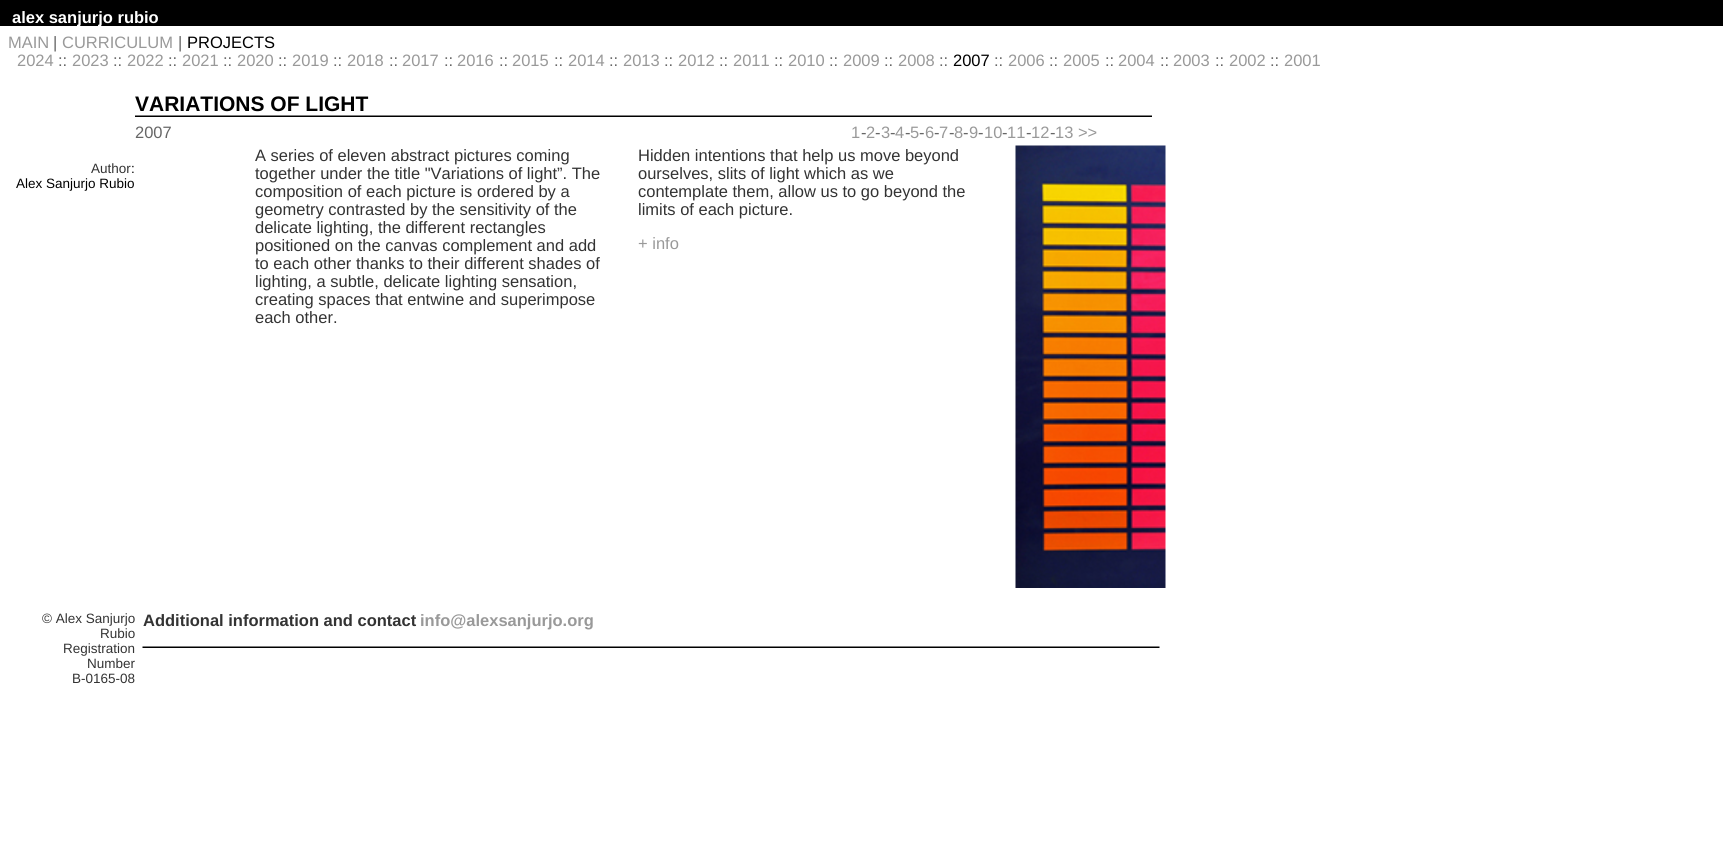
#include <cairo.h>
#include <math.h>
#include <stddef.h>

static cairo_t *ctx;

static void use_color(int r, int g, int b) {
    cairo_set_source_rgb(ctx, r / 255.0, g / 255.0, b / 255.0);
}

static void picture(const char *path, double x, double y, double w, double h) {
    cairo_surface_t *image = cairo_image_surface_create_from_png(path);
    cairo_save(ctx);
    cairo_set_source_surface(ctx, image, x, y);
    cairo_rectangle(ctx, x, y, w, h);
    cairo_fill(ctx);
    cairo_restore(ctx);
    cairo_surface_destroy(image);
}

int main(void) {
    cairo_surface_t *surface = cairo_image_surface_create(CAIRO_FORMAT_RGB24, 1723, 849);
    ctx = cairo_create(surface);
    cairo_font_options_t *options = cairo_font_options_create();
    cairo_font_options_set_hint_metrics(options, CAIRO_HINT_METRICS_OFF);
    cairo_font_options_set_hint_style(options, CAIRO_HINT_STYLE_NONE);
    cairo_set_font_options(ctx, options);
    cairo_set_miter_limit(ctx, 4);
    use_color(255, 255, 255);
    cairo_paint(ctx);
    use_color(0, 0, 0);
    cairo_rectangle(ctx, 0, 0, 1723, 26);
    cairo_fill(ctx);
    cairo_select_font_face(ctx, "Liberation Sans", CAIRO_FONT_SLANT_NORMAL, CAIRO_FONT_WEIGHT_BOLD);
    cairo_set_font_size(ctx, 16.5);
    use_color(255, 255, 255);
    cairo_move_to(ctx, 12, 23);
    cairo_show_text(ctx, "alex sanjurjo rubio");
    cairo_select_font_face(ctx, "Liberation Sans", CAIRO_FONT_SLANT_NORMAL, CAIRO_FONT_WEIGHT_NORMAL);
    use_color(153, 153, 153);
    cairo_move_to(ctx, 8, 48);
    cairo_show_text(ctx, "MAIN");
    use_color(102, 102, 102);
    cairo_move_to(ctx, 53, 48);
    cairo_show_text(ctx, "|");
    use_color(153, 153, 153);
    cairo_move_to(ctx, 62, 48);
    cairo_show_text(ctx, "CURRICULUM");
    use_color(102, 102, 102);
    cairo_move_to(ctx, 178, 48);
    cairo_show_text(ctx, "|");
    use_color(0, 0, 0);
    cairo_move_to(ctx, 187, 48);
    cairo_show_text(ctx, "PROJECTS");
    use_color(153, 153, 153);
    cairo_move_to(ctx, 17, 66);
    cairo_show_text(ctx, "2024");
    use_color(102, 102, 102);
    cairo_move_to(ctx, 58, 66);
    cairo_show_text(ctx, "::");
    use_color(153, 153, 153);
    cairo_move_to(ctx, 72, 66);
    cairo_show_text(ctx, "2023");
    use_color(102, 102, 102);
    cairo_move_to(ctx, 113, 66);
    cairo_show_text(ctx, "::");
    use_color(153, 153, 153);
    cairo_move_to(ctx, 127, 66);
    cairo_show_text(ctx, "2022");
    use_color(102, 102, 102);
    cairo_move_to(ctx, 168, 66);
    cairo_show_text(ctx, "::");
    use_color(153, 153, 153);
    cairo_move_to(ctx, 182, 66);
    cairo_show_text(ctx, "2021");
    use_color(102, 102, 102);
    cairo_move_to(ctx, 223, 66);
    cairo_show_text(ctx, "::");
    use_color(153, 153, 153);
    cairo_move_to(ctx, 237, 66);
    cairo_show_text(ctx, "2020");
    use_color(102, 102, 102);
    cairo_move_to(ctx, 278, 66);
    cairo_show_text(ctx, "::");
    use_color(153, 153, 153);
    cairo_move_to(ctx, 292, 66);
    cairo_show_text(ctx, "2019");
    use_color(102, 102, 102);
    cairo_move_to(ctx, 333, 66);
    cairo_show_text(ctx, "::");
    use_color(153, 153, 153);
    cairo_move_to(ctx, 347, 66);
    cairo_show_text(ctx, "2018");
    use_color(102, 102, 102);
    cairo_move_to(ctx, 389, 66);
    cairo_show_text(ctx, "::");
    use_color(153, 153, 153);
    cairo_move_to(ctx, 402, 66);
    cairo_show_text(ctx, "2017");
    use_color(102, 102, 102);
    cairo_move_to(ctx, 444, 66);
    cairo_show_text(ctx, "::");
    use_color(153, 153, 153);
    cairo_move_to(ctx, 457, 66);
    cairo_show_text(ctx, "2016");
    use_color(102, 102, 102);
    cairo_move_to(ctx, 499, 66);
    cairo_show_text(ctx, "::");
    use_color(153, 153, 153);
    cairo_move_to(ctx, 512, 66);
    cairo_show_text(ctx, "2015");
    use_color(102, 102, 102);
    cairo_move_to(ctx, 554, 66);
    cairo_show_text(ctx, "::");
    use_color(153, 153, 153);
    cairo_move_to(ctx, 568, 66);
    cairo_show_text(ctx, "2014");
    use_color(102, 102, 102);
    cairo_move_to(ctx, 609, 66);
    cairo_show_text(ctx, "::");
    use_color(153, 153, 153);
    cairo_move_to(ctx, 623, 66);
    cairo_show_text(ctx, "2013");
    use_color(102, 102, 102);
    cairo_move_to(ctx, 664, 66);
    cairo_show_text(ctx, "::");
    use_color(153, 153, 153);
    cairo_move_to(ctx, 678, 66);
    cairo_show_text(ctx, "2012");
    use_color(102, 102, 102);
    cairo_move_to(ctx, 719, 66);
    cairo_show_text(ctx, "::");
    use_color(153, 153, 153);
    cairo_move_to(ctx, 733, 66);
    cairo_show_text(ctx, "2011");
    use_color(102, 102, 102);
    cairo_move_to(ctx, 774, 66);
    cairo_show_text(ctx, "::");
    use_color(153, 153, 153);
    cairo_move_to(ctx, 788, 66);
    cairo_show_text(ctx, "2010");
    use_color(102, 102, 102);
    cairo_move_to(ctx, 829, 66);
    cairo_show_text(ctx, "::");
    use_color(153, 153, 153);
    cairo_move_to(ctx, 843, 66);
    cairo_show_text(ctx, "2009");
    use_color(102, 102, 102);
    cairo_move_to(ctx, 884, 66);
    cairo_show_text(ctx, "::");
    use_color(153, 153, 153);
    cairo_move_to(ctx, 898, 66);
    cairo_show_text(ctx, "2008");
    use_color(102, 102, 102);
    cairo_move_to(ctx, 939, 66);
    cairo_show_text(ctx, "::");
    use_color(0, 0, 0);
    cairo_move_to(ctx, 953, 66);
    cairo_show_text(ctx, "2007");
    use_color(102, 102, 102);
    cairo_move_to(ctx, 994, 66);
    cairo_show_text(ctx, "::");
    use_color(153, 153, 153);
    cairo_move_to(ctx, 1008, 66);
    cairo_show_text(ctx, "2006");
    use_color(102, 102, 102);
    cairo_move_to(ctx, 1049, 66);
    cairo_show_text(ctx, "::");
    use_color(153, 153, 153);
    cairo_move_to(ctx, 1063, 66);
    cairo_show_text(ctx, "2005");
    use_color(102, 102, 102);
    cairo_move_to(ctx, 1105, 66);
    cairo_show_text(ctx, "::");
    use_color(153, 153, 153);
    cairo_move_to(ctx, 1118, 66);
    cairo_show_text(ctx, "2004");
    use_color(102, 102, 102);
    cairo_move_to(ctx, 1160, 66);
    cairo_show_text(ctx, "::");
    use_color(153, 153, 153);
    cairo_move_to(ctx, 1173, 66);
    cairo_show_text(ctx, "2003");
    use_color(102, 102, 102);
    cairo_move_to(ctx, 1215, 66);
    cairo_show_text(ctx, "::");
    use_color(153, 153, 153);
    cairo_move_to(ctx, 1229, 66);
    cairo_show_text(ctx, "2002");
    use_color(102, 102, 102);
    cairo_move_to(ctx, 1270, 66);
    cairo_show_text(ctx, "::");
    use_color(153, 153, 153);
    cairo_move_to(ctx, 1284, 66);
    cairo_show_text(ctx, "2001");
    cairo_select_font_face(ctx, "Liberation Sans", CAIRO_FONT_SLANT_NORMAL, CAIRO_FONT_WEIGHT_BOLD);
    cairo_set_font_size(ctx, 21);
    use_color(0, 0, 0);
    cairo_move_to(ctx, 135, 111);
    cairo_show_text(ctx, "VARIATIONS OF LIGHT");
    picture("img1.png", 135, 115, 1017, 2);
    cairo_select_font_face(ctx, "Liberation Sans", CAIRO_FONT_SLANT_NORMAL, CAIRO_FONT_WEIGHT_NORMAL);
    cairo_set_font_size(ctx, 16.5);
    use_color(102, 102, 102);
    cairo_move_to(ctx, 135, 138);
    cairo_show_text(ctx, "2007");
    use_color(153, 153, 153);
    cairo_move_to(ctx, 851, 138);
    cairo_show_text(ctx, "1");
    use_color(102, 102, 102);
    cairo_move_to(ctx, 861, 138);
    cairo_show_text(ctx, "-");
    use_color(153, 153, 153);
    cairo_move_to(ctx, 866, 138);
    cairo_show_text(ctx, "2");
    use_color(102, 102, 102);
    cairo_move_to(ctx, 875, 138);
    cairo_show_text(ctx, "-");
    use_color(153, 153, 153);
    cairo_move_to(ctx, 881, 138);
    cairo_show_text(ctx, "3");
    use_color(102, 102, 102);
    cairo_move_to(ctx, 890, 138);
    cairo_show_text(ctx, "-");
    use_color(153, 153, 153);
    cairo_move_to(ctx, 895, 138);
    cairo_show_text(ctx, "4");
    use_color(102, 102, 102);
    cairo_move_to(ctx, 905, 138);
    cairo_show_text(ctx, "-");
    use_color(153, 153, 153);
    cairo_move_to(ctx, 910, 138);
    cairo_show_text(ctx, "5");
    use_color(102, 102, 102);
    cairo_move_to(ctx, 919, 138);
    cairo_show_text(ctx, "-");
    use_color(153, 153, 153);
    cairo_move_to(ctx, 925, 138);
    cairo_show_text(ctx, "6");
    use_color(102, 102, 102);
    cairo_move_to(ctx, 934, 138);
    cairo_show_text(ctx, "-");
    use_color(153, 153, 153);
    cairo_move_to(ctx, 939, 138);
    cairo_show_text(ctx, "7");
    use_color(102, 102, 102);
    cairo_move_to(ctx, 949, 138);
    cairo_show_text(ctx, "-");
    use_color(153, 153, 153);
    cairo_move_to(ctx, 954, 138);
    cairo_show_text(ctx, "8");
    use_color(102, 102, 102);
    cairo_move_to(ctx, 963, 138);
    cairo_show_text(ctx, "-");
    use_color(153, 153, 153);
    cairo_move_to(ctx, 969, 138);
    cairo_show_text(ctx, "9");
    use_color(102, 102, 102);
    cairo_move_to(ctx, 978, 138);
    cairo_show_text(ctx, "-");
    use_color(153, 153, 153);
    cairo_move_to(ctx, 984, 138);
    cairo_show_text(ctx, "10");
    use_color(102, 102, 102);
    cairo_move_to(ctx, 1002, 138);
    cairo_show_text(ctx, "-");
    use_color(153, 153, 153);
    cairo_move_to(ctx, 1007, 138);
    cairo_show_text(ctx, "11");
    use_color(102, 102, 102);
    cairo_move_to(ctx, 1026, 138);
    cairo_show_text(ctx, "-");
    use_color(153, 153, 153);
    cairo_move_to(ctx, 1031, 138);
    cairo_show_text(ctx, "12");
    use_color(102, 102, 102);
    cairo_move_to(ctx, 1050, 138);
    cairo_show_text(ctx, "-");
    use_color(153, 153, 153);
    cairo_move_to(ctx, 1055, 138);
    cairo_show_text(ctx, "13 >>");
    cairo_set_font_size(ctx, 13.5);
    use_color(51, 51, 51);
    cairo_move_to(ctx, 91, 173);
    cairo_show_text(ctx, "Author");
    use_color(0, 0, 0);
    cairo_move_to(ctx, 131, 173);
    cairo_show_text(ctx, ":");
    cairo_move_to(ctx, 16, 188);
    cairo_show_text(ctx, "Alex Sanjurjo Rubio");
    cairo_set_font_size(ctx, 16.5);
    use_color(51, 51, 51);
    cairo_move_to(ctx, 255, 161);
    cairo_show_text(ctx, "A series of eleven abstract pictures coming");
    cairo_move_to(ctx, 255, 179);
    cairo_show_text(ctx, "together under the title \"Variations of light”. The");
    cairo_move_to(ctx, 255, 197);
    cairo_show_text(ctx, "composition of each picture is ordered by a");
    cairo_move_to(ctx, 255, 215);
    cairo_show_text(ctx, "geometry contrasted by the sensitivity of the");
    cairo_move_to(ctx, 255, 233);
    cairo_show_text(ctx, "delicate lighting, the different rectangles");
    cairo_move_to(ctx, 255, 251);
    cairo_show_text(ctx, "positioned on the canvas complement and add");
    cairo_move_to(ctx, 255, 269);
    cairo_show_text(ctx, "to each other thanks to their different shades of");
    cairo_move_to(ctx, 255, 287);
    cairo_show_text(ctx, "lighting, a subtle, delicate lighting sensation,");
    cairo_move_to(ctx, 255, 305);
    cairo_show_text(ctx, "creating spaces that entwine and superimpose");
    cairo_move_to(ctx, 255, 323);
    cairo_show_text(ctx, "each other.");
    cairo_move_to(ctx, 638, 161);
    cairo_show_text(ctx, "Hidden intentions that help us move beyond");
    cairo_move_to(ctx, 638, 179);
    cairo_show_text(ctx, "ourselves, slits of light which as we");
    cairo_move_to(ctx, 638, 197);
    cairo_show_text(ctx, "contemplate them, allow us to go beyond the");
    cairo_move_to(ctx, 638, 215);
    cairo_show_text(ctx, "limits of each picture.");
    use_color(153, 153, 153);
    cairo_move_to(ctx, 638, 249);
    cairo_show_text(ctx, "+ info");
    picture("img2.png", 1015, 145, 151, 443);
    cairo_set_font_size(ctx, 13.5);
    use_color(51, 51, 51);
    cairo_move_to(ctx, 42, 623);
    cairo_show_text(ctx, "© Alex Sanjurjo");
    cairo_move_to(ctx, 100, 638);
    cairo_show_text(ctx, "Rubio");
    cairo_move_to(ctx, 63, 653);
    cairo_show_text(ctx, "Registration");
    cairo_move_to(ctx, 87, 668);
    cairo_show_text(ctx, "Number");
    cairo_move_to(ctx, 72, 683);
    cairo_show_text(ctx, "B-0165-08");
    cairo_select_font_face(ctx, "Liberation Sans", CAIRO_FONT_SLANT_NORMAL, CAIRO_FONT_WEIGHT_BOLD);
    cairo_set_font_size(ctx, 16.5);
    cairo_move_to(ctx, 143, 626);
    cairo_show_text(ctx, "Additional information and contact");
    use_color(153, 153, 153);
    cairo_move_to(ctx, 420, 626);
    cairo_show_text(ctx, "info@alexsanjurjo.org");
    picture("img3.png", 142, 646, 1018, 2);
    cairo_surface_write_to_png(surface, "result.png");
    cairo_font_options_destroy(options);
    cairo_destroy(ctx);
    cairo_surface_destroy(surface);
    return 0;
}
